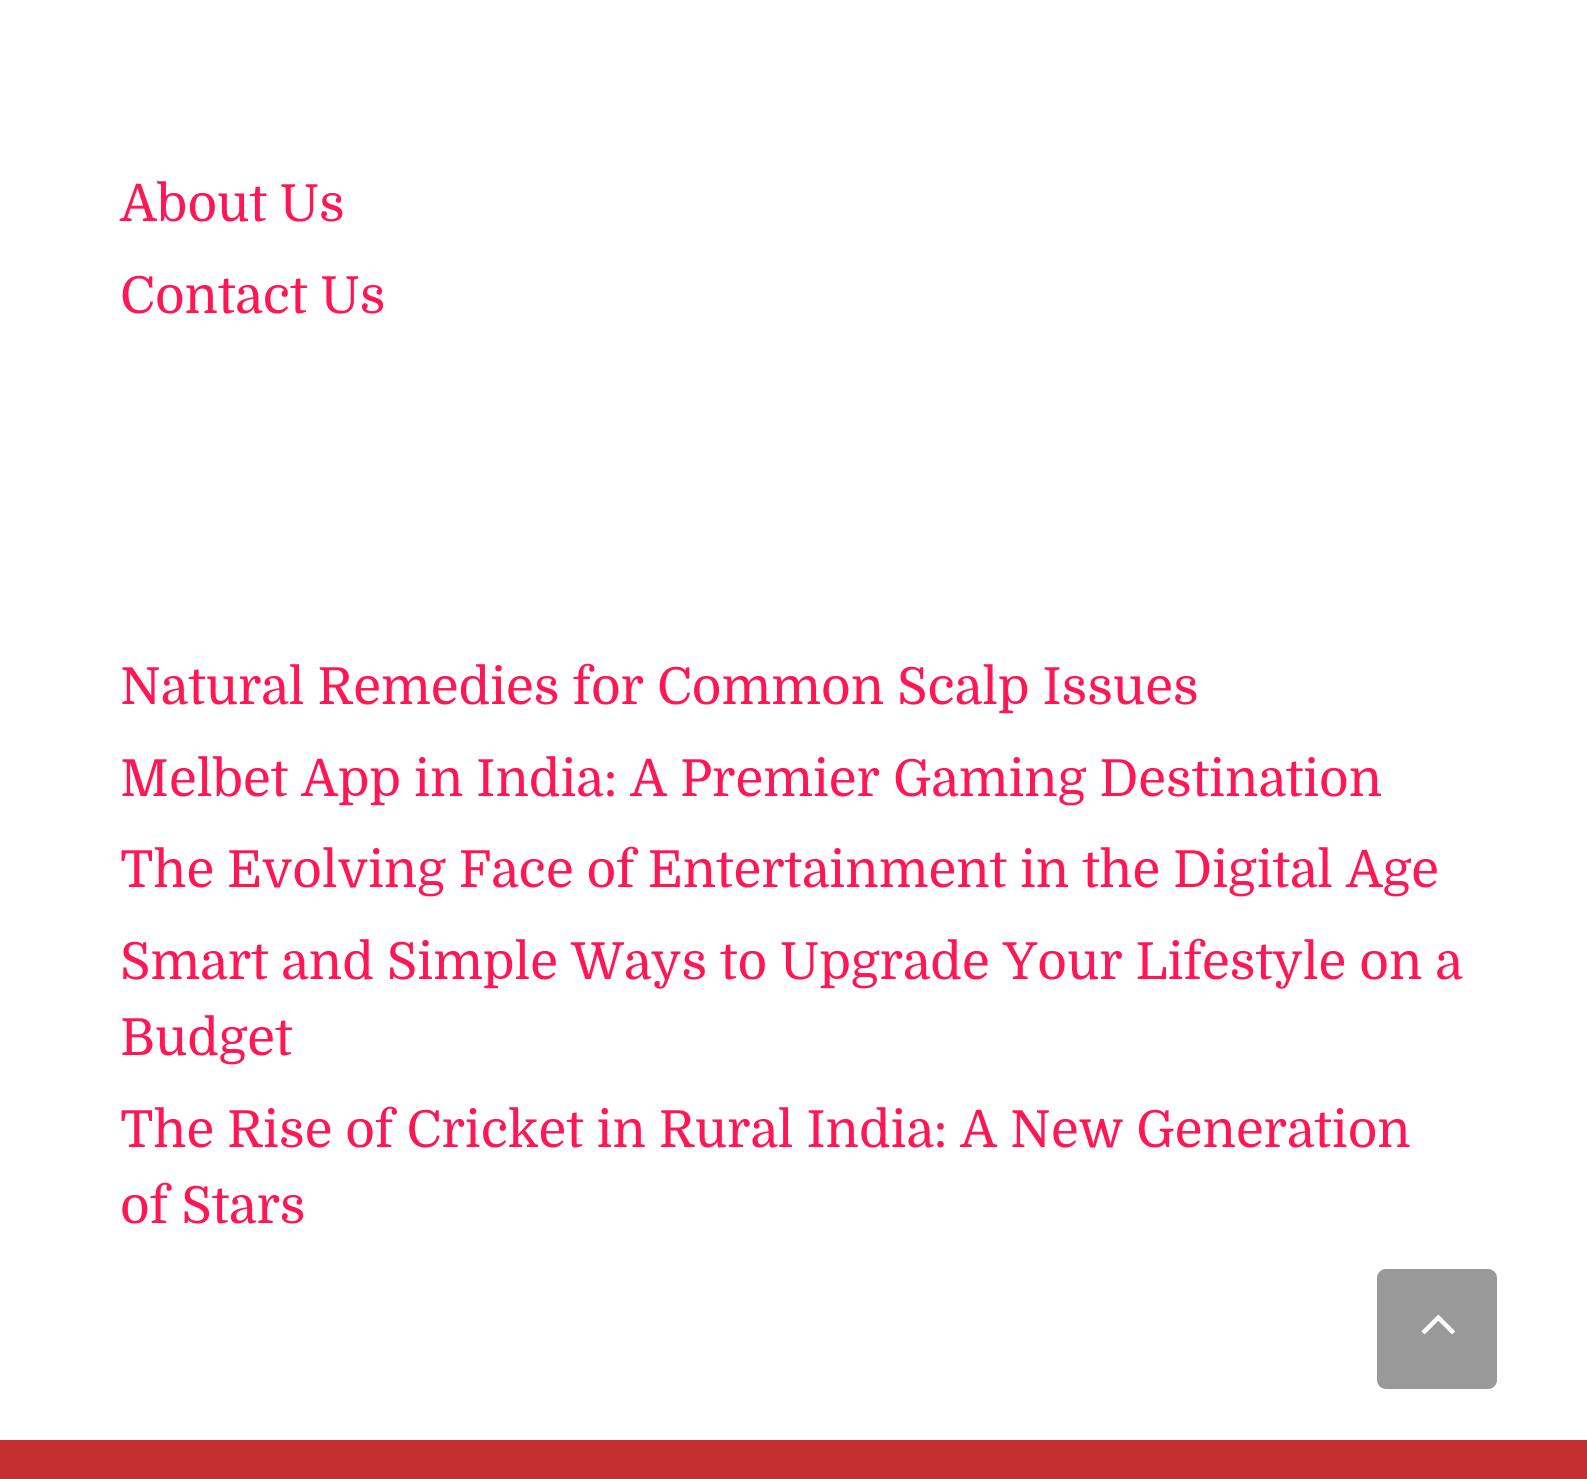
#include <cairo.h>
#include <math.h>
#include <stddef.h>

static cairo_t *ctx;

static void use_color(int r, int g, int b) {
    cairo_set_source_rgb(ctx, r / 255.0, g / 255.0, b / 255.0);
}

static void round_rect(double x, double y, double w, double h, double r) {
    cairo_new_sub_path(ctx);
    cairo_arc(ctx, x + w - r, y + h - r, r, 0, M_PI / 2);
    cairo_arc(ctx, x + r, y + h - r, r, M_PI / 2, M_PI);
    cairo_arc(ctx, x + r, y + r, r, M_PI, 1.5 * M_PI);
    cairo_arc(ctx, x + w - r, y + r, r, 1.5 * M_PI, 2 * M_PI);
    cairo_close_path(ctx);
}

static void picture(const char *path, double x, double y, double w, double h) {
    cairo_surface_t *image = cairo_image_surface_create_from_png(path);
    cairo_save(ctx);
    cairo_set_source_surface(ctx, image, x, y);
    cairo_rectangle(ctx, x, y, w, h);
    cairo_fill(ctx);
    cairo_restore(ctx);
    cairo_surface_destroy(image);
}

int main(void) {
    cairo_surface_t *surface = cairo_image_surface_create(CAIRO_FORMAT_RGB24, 1587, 1479);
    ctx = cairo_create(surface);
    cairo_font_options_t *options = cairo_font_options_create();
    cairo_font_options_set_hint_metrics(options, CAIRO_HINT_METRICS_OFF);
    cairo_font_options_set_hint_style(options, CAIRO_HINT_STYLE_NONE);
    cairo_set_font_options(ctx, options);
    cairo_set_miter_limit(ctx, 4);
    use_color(255, 255, 255);
    cairo_paint(ctx);
    cairo_select_font_face(ctx, "Domine", CAIRO_FONT_SLANT_NORMAL, CAIRO_FONT_WEIGHT_NORMAL);
    cairo_set_font_size(ctx, 51);
    use_color(255, 22, 84);
    cairo_move_to(ctx, 120, 221);
    cairo_show_text(ctx, "About Us");
    cairo_move_to(ctx, 120, 313);
    cairo_show_text(ctx, "Contact Us");
    cairo_move_to(ctx, 120, 704);
    cairo_show_text(ctx, "Natural Remedies for Common Scalp Issues");
    cairo_move_to(ctx, 120, 796);
    cairo_show_text(ctx, "Melbet App in India: A Premier Gaming Destination");
    cairo_move_to(ctx, 120, 887);
    cairo_show_text(ctx, "The Evolving Face of Entertainment in the Digital Age");
    cairo_move_to(ctx, 120, 979);
    cairo_show_text(ctx, "Smart and Simple Ways to Upgrade Your Lifestyle on a");
    cairo_move_to(ctx, 120, 1055);
    cairo_show_text(ctx, "Budget");
    cairo_move_to(ctx, 120, 1147);
    cairo_show_text(ctx, "The Rise of Cricket in Rural India: A New Generation");
    cairo_move_to(ctx, 120, 1223);
    cairo_show_text(ctx, "of Stars");
    use_color(153, 153, 153);
    round_rect(1377, 1269, 120, 120, 9);
    cairo_fill(ctx);
    picture("img1.png", 1421, 1314, 34, 21);
    use_color(196, 47, 47);
    cairo_rectangle(ctx, 0, 1440, 1587, 39);
    cairo_fill(ctx);
    cairo_surface_write_to_png(surface, "result.png");
    cairo_font_options_destroy(options);
    cairo_destroy(ctx);
    cairo_surface_destroy(surface);
    return 0;
}
